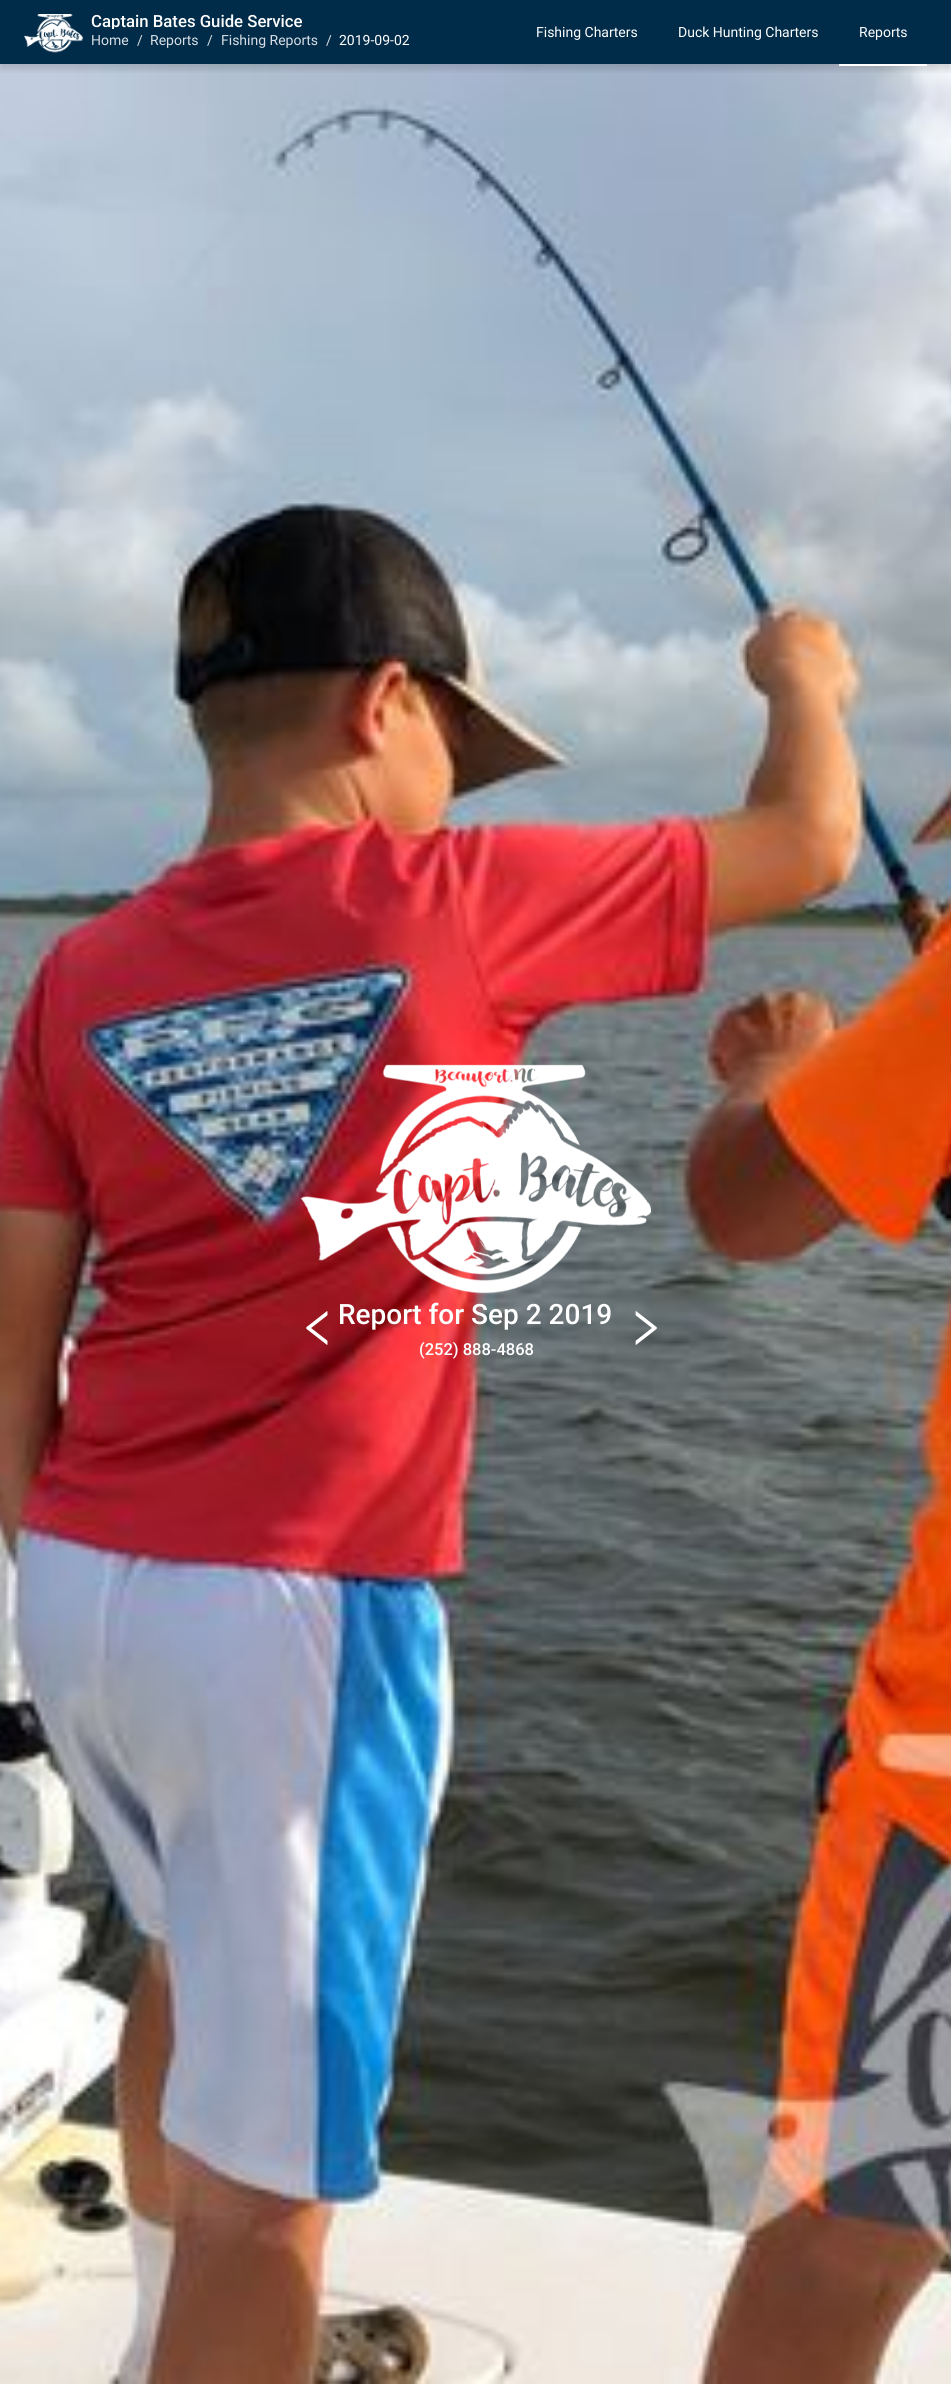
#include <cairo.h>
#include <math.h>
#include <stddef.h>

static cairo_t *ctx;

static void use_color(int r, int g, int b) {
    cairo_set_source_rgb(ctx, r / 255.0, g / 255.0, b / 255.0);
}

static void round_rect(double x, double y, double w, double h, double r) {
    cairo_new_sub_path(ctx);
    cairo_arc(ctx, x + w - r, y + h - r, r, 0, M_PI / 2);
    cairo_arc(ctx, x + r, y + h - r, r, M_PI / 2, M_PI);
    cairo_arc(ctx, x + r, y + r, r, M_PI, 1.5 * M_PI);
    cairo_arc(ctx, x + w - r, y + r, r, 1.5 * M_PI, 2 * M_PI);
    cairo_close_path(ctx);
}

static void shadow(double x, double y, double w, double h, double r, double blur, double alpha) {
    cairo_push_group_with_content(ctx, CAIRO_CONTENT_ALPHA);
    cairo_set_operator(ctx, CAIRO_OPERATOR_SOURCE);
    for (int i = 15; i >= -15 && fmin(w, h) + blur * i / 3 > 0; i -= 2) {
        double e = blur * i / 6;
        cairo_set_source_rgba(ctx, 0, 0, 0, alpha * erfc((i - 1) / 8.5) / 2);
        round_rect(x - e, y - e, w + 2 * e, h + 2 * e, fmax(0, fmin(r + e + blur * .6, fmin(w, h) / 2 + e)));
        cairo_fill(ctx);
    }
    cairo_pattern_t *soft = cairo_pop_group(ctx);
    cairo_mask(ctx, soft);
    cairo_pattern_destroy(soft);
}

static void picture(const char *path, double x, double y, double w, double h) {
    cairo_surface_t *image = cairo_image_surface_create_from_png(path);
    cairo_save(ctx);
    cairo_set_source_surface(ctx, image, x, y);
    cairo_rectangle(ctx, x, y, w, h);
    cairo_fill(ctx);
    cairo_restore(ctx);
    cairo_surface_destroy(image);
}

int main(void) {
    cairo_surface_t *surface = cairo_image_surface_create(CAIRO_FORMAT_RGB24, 951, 2384);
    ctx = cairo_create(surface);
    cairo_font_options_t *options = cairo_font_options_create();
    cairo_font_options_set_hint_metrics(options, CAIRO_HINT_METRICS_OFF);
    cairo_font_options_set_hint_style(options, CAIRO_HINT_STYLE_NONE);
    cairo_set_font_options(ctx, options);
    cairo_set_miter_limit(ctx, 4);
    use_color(0, 43, 73);
    cairo_paint(ctx);
    picture("img2.png", 0, 64, 951, 2320);
    cairo_save(ctx);
    cairo_rectangle(ctx, 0, 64, 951, 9);
    cairo_clip(ctx);
    use_color(0, 0, 0);
    shadow(0, 5, 951, 64, 0, 4, 0.15);
    cairo_restore(ctx);
    picture("img1.png", 24, 14, 59, 39);
    cairo_save(ctx);
    cairo_rectangle(ctx, 91, 13, 319, 16);
    cairo_clip(ctx);
    cairo_select_font_face(ctx, "Roboto Medium", CAIRO_FONT_SLANT_NORMAL, CAIRO_FONT_WEIGHT_NORMAL);
    cairo_set_font_size(ctx, 16.75);
    use_color(255, 255, 255);
    cairo_move_to(ctx, 91, 27);
    cairo_show_text(ctx, "Captain Bates Guide Service");
    cairo_restore(ctx);
    cairo_select_font_face(ctx, "Roboto", CAIRO_FONT_SLANT_NORMAL, CAIRO_FONT_WEIGHT_NORMAL);
    cairo_set_font_size(ctx, 14);
    use_color(217, 223, 228);
    cairo_move_to(ctx, 91, 45);
    cairo_show_text(ctx, "Home");
    cairo_move_to(ctx, 137, 45);
    cairo_show_text(ctx, "/");
    cairo_move_to(ctx, 150, 45);
    cairo_show_text(ctx, "Reports");
    cairo_move_to(ctx, 207, 45);
    cairo_show_text(ctx, "/");
    cairo_move_to(ctx, 221, 45);
    cairo_show_text(ctx, "Fishing Reports");
    cairo_move_to(ctx, 326, 45);
    cairo_show_text(ctx, "/");
    use_color(255, 255, 255);
    cairo_move_to(ctx, 339, 45);
    cairo_show_text(ctx, "2019-09-02");
    cairo_move_to(ctx, 536, 37);
    cairo_show_text(ctx, "Fishing Charters");
    cairo_move_to(ctx, 678, 37);
    cairo_show_text(ctx, "Duck Hunting Charters");
    cairo_rectangle(ctx, 839, 64, 88, 2);
    cairo_fill(ctx);
    cairo_move_to(ctx, 859, 37);
    cairo_show_text(ctx, "Reports");
    picture("img3.png", 300, 1064, 351, 230);
    picture("img4.png", 306, 1311, 22, 34);
    cairo_select_font_face(ctx, "Roboto Medium", CAIRO_FONT_SLANT_NORMAL, CAIRO_FONT_WEIGHT_NORMAL);
    cairo_set_font_size(ctx, 28);
    cairo_move_to(ctx, 338, 1324);
    cairo_show_text(ctx, "Report for Sep 2 2019");
    cairo_set_font_size(ctx, 16.5);
    cairo_move_to(ctx, 419, 1355);
    cairo_show_text(ctx, "(252) 888-4868");
    picture("img5.png", 635, 1311, 22, 34);
    cairo_surface_write_to_png(surface, "result.png");
    cairo_font_options_destroy(options);
    cairo_destroy(ctx);
    cairo_surface_destroy(surface);
    return 0;
}
